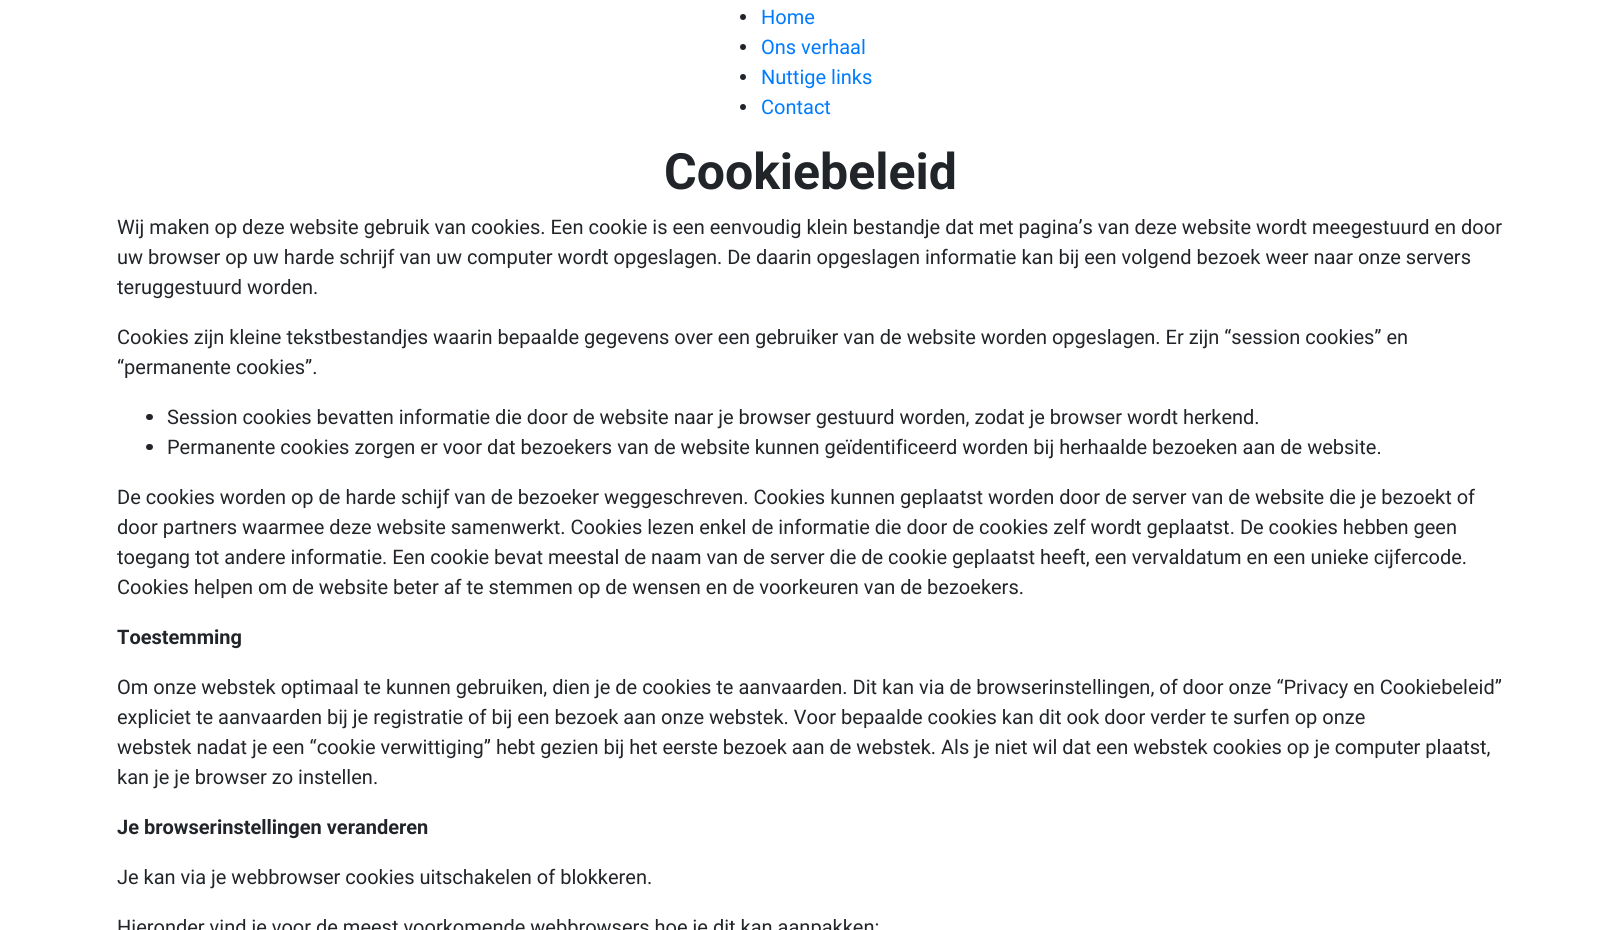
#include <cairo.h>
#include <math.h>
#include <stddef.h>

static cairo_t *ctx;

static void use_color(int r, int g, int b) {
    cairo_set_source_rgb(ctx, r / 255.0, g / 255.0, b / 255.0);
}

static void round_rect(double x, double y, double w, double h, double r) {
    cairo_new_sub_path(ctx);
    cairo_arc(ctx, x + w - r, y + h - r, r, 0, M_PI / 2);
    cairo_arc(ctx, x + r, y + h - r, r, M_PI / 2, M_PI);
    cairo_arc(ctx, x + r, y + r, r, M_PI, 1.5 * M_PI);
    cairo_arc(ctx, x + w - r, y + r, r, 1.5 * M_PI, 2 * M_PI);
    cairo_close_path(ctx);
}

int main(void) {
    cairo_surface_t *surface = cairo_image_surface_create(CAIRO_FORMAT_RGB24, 1621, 930);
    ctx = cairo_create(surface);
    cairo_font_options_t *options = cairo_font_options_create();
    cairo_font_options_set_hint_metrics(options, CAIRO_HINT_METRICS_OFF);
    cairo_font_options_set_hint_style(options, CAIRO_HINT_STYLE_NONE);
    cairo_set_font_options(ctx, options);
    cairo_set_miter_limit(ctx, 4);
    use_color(255, 255, 255);
    cairo_paint(ctx);
    use_color(33, 37, 41);
    cairo_arc(ctx, 743, 17, 3, 0, 2 * M_PI);
    cairo_fill(ctx);
    cairo_select_font_face(ctx, "Roboto", CAIRO_FONT_SLANT_NORMAL, CAIRO_FONT_WEIGHT_NORMAL);
    cairo_set_font_size(ctx, 20);
    use_color(0, 123, 255);
    cairo_move_to(ctx, 761, 24);
    cairo_show_text(ctx, "Home");
    use_color(33, 37, 41);
    cairo_new_path(ctx);
    cairo_arc(ctx, 743, 47, 3, 0, 2 * M_PI);
    cairo_fill(ctx);
    use_color(0, 123, 255);
    cairo_move_to(ctx, 761, 54);
    cairo_show_text(ctx, "Ons verhaal");
    use_color(33, 37, 41);
    cairo_new_path(ctx);
    cairo_arc(ctx, 743, 77, 3, 0, 2 * M_PI);
    cairo_fill(ctx);
    use_color(0, 123, 255);
    cairo_move_to(ctx, 761, 84);
    cairo_show_text(ctx, "Nuttige links");
    use_color(33, 37, 41);
    cairo_new_path(ctx);
    cairo_arc(ctx, 743, 107, 3, 0, 2 * M_PI);
    cairo_fill(ctx);
    use_color(0, 123, 255);
    cairo_move_to(ctx, 761, 114);
    cairo_show_text(ctx, "Contact");
    cairo_select_font_face(ctx, "Roboto", CAIRO_FONT_SLANT_NORMAL, CAIRO_FONT_WEIGHT_BOLD);
    cairo_set_font_size(ctx, 50);
    use_color(33, 37, 41);
    cairo_move_to(ctx, 664, 189);
    cairo_show_text(ctx, "Cookiebeleid");
    cairo_select_font_face(ctx, "Roboto", CAIRO_FONT_SLANT_NORMAL, CAIRO_FONT_WEIGHT_NORMAL);
    cairo_set_font_size(ctx, 20);
    cairo_move_to(ctx, 117, 234);
    cairo_show_text(ctx, "Wij maken op deze website gebruik van cookies. Een cookie is een eenvoudig klein bestandje dat met pagina’s van deze website wordt meegestuurd en door");
    cairo_move_to(ctx, 117, 264);
    cairo_show_text(ctx, "uw browser op uw harde schrijf van uw computer wordt opgeslagen. De daarin opgeslagen informatie kan bij een volgend bezoek weer naar onze servers");
    cairo_move_to(ctx, 117, 294);
    cairo_show_text(ctx, "teruggestuurd worden.");
    cairo_move_to(ctx, 117, 344);
    cairo_show_text(ctx, "Cookies zijn kleine tekstbestandjes waarin bepaalde gegevens over een gebruiker van de website worden opgeslagen. Er zijn “session cookies” en");
    cairo_move_to(ctx, 117, 374);
    cairo_show_text(ctx, "“permanente cookies”.");
    round_rect(146, 414, 7, 6, 3);
    cairo_fill(ctx);
    cairo_move_to(ctx, 167, 424);
    cairo_show_text(ctx, "Session cookies bevatten informatie die door de website naar je browser gestuurd worden, zodat je browser wordt herkend.");
    round_rect(146, 444, 7, 6, 3);
    cairo_fill(ctx);
    cairo_move_to(ctx, 167, 454);
    cairo_show_text(ctx, "Permanente cookies zorgen er voor dat bezoekers van de website kunnen geïdentificeerd worden bij herhaalde bezoeken aan de website.");
    cairo_move_to(ctx, 117, 504);
    cairo_show_text(ctx, "De cookies worden op de harde schijf van de bezoeker weggeschreven. Cookies kunnen geplaatst worden door de server van de website die je bezoekt of");
    cairo_move_to(ctx, 117, 534);
    cairo_show_text(ctx, "door partners waarmee deze website samenwerkt. Cookies lezen enkel de informatie die door de cookies zelf wordt geplaatst. De cookies hebben geen");
    cairo_move_to(ctx, 117, 564);
    cairo_show_text(ctx, "toegang tot andere informatie. Een cookie bevat meestal de naam van de server die de cookie geplaatst heeft, een vervaldatum en een unieke cijfercode.");
    cairo_move_to(ctx, 117, 594);
    cairo_show_text(ctx, "Cookies helpen om de website beter af te stemmen op de wensen en de voorkeuren van de bezoekers.");
    cairo_select_font_face(ctx, "Roboto", CAIRO_FONT_SLANT_NORMAL, CAIRO_FONT_WEIGHT_BOLD);
    cairo_move_to(ctx, 117, 644);
    cairo_show_text(ctx, "Toestemming");
    cairo_select_font_face(ctx, "Roboto", CAIRO_FONT_SLANT_NORMAL, CAIRO_FONT_WEIGHT_NORMAL);
    cairo_move_to(ctx, 117, 694);
    cairo_show_text(ctx, "Om onze webstek optimaal te kunnen gebruiken, dien je de cookies te aanvaarden. Dit kan via de browserinstellingen, of door onze “Privacy en Cookiebeleid”");
    cairo_move_to(ctx, 117, 724);
    cairo_show_text(ctx, "expliciet te aanvaarden bij je registratie of bij een bezoek aan onze webstek. Voor bepaalde cookies kan dit ook door verder te surfen op onze");
    cairo_move_to(ctx, 117, 754);
    cairo_show_text(ctx, "webstek nadat je een “cookie verwittiging” hebt gezien bij het eerste bezoek aan de webstek. Als je niet wil dat een webstek cookies op je computer plaatst,");
    cairo_move_to(ctx, 117, 784);
    cairo_show_text(ctx, "kan je je browser zo instellen.");
    cairo_select_font_face(ctx, "Roboto", CAIRO_FONT_SLANT_NORMAL, CAIRO_FONT_WEIGHT_BOLD);
    cairo_move_to(ctx, 117, 834);
    cairo_show_text(ctx, "Je browserinstellingen veranderen");
    cairo_select_font_face(ctx, "Roboto", CAIRO_FONT_SLANT_NORMAL, CAIRO_FONT_WEIGHT_NORMAL);
    cairo_move_to(ctx, 117, 884);
    cairo_show_text(ctx, "Je kan via je webbrowser cookies uitschakelen of blokkeren.");
    cairo_move_to(ctx, 117, 934);
    cairo_show_text(ctx, "Hieronder vind je voor de meest voorkomende webbrowsers hoe je dit kan aanpakken:");
    cairo_surface_write_to_png(surface, "result.png");
    cairo_font_options_destroy(options);
    cairo_destroy(ctx);
    cairo_surface_destroy(surface);
    return 0;
}
